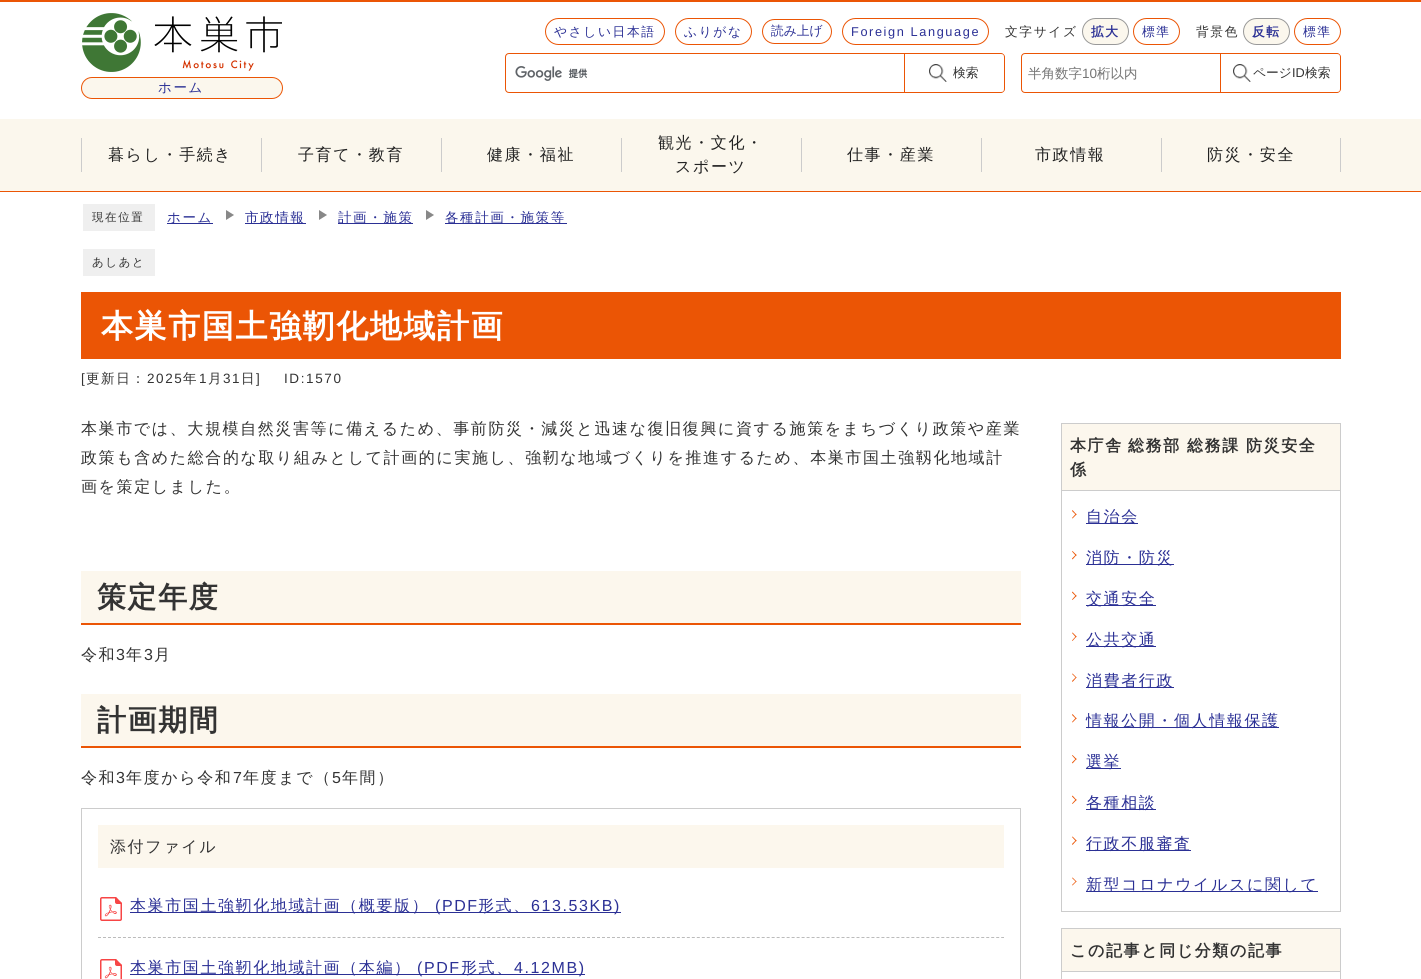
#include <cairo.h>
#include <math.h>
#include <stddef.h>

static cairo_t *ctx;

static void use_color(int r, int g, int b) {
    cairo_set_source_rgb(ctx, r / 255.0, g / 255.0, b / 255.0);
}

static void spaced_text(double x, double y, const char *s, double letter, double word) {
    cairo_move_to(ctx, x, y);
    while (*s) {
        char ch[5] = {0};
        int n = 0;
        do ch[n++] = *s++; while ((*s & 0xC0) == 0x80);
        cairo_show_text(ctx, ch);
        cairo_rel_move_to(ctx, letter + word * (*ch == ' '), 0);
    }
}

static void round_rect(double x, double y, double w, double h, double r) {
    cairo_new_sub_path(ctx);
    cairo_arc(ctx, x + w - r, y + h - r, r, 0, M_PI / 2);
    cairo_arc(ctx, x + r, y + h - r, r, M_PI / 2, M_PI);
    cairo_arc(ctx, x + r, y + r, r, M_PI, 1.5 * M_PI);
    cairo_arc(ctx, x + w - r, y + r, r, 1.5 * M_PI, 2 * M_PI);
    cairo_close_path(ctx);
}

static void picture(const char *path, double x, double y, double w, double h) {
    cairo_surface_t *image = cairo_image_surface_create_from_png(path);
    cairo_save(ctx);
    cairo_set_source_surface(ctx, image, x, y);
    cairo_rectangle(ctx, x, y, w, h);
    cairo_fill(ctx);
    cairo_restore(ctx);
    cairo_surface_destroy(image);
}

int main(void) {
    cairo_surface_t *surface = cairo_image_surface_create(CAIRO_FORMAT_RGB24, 1421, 979);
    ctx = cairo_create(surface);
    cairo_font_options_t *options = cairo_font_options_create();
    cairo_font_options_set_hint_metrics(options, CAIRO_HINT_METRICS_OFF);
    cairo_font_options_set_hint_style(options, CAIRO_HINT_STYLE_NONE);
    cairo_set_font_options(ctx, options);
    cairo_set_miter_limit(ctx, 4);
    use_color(255, 255, 255);
    cairo_paint(ctx);
    use_color(235, 85, 5);
    cairo_rectangle(ctx, 0, 0, 1421, 2);
    cairo_fill(ctx);
    round_rect(545.5, 18.5, 119, 26, 13);
    cairo_set_line_width(ctx, 1);
    cairo_stroke(ctx);
    cairo_select_font_face(ctx, "WenQuanYi Zen Hei Medium", CAIRO_FONT_SLANT_NORMAL, CAIRO_FONT_WEIGHT_NORMAL);
    cairo_set_font_size(ctx, 12.75);
    use_color(43, 48, 149);
    spaced_text(554, 36, "やさしい日本語", 1.6, 0);
    round_rect(675.5, 18.5, 76, 26, 13);
    use_color(235, 85, 5);
    cairo_stroke(ctx);
    use_color(43, 48, 149);
    spaced_text(684, 36, "ふりがな", 1.6, 0);
    round_rect(762.5, 19.5, 69, 24, 12);
    use_color(235, 85, 5);
    cairo_stroke(ctx);
    use_color(43, 48, 149);
    cairo_move_to(ctx, 771, 35);
    cairo_show_text(ctx, "読み上げ");
    round_rect(842.5, 18.5, 146, 26, 13);
    use_color(235, 85, 5);
    cairo_stroke(ctx);
    cairo_select_font_face(ctx, "Liberation Sans", CAIRO_FONT_SLANT_NORMAL, CAIRO_FONT_WEIGHT_NORMAL);
    use_color(43, 48, 149);
    spaced_text(851, 36, "Foreign Language", 1.6, 0);
    cairo_select_font_face(ctx, "WenQuanYi Zen Hei Medium", CAIRO_FONT_SLANT_NORMAL, CAIRO_FONT_WEIGHT_NORMAL);
    use_color(51, 51, 51);
    spaced_text(1005, 36, "文字サイズ", 1.6, 0);
    use_color(251, 247, 237);
    round_rect(1082.5, 18.5, 46, 26, 13);
    cairo_fill_preserve(ctx);
    use_color(153, 153, 153);
    cairo_stroke(ctx);
    cairo_select_font_face(ctx, "WenQuanYi Zen Hei", CAIRO_FONT_SLANT_NORMAL, CAIRO_FONT_WEIGHT_BOLD);
    use_color(43, 48, 149);
    spaced_text(1091, 36, "拡大", 1.6, 0);
    round_rect(1133.5, 18.5, 46, 26, 13);
    use_color(235, 85, 5);
    cairo_stroke(ctx);
    cairo_select_font_face(ctx, "WenQuanYi Zen Hei Medium", CAIRO_FONT_SLANT_NORMAL, CAIRO_FONT_WEIGHT_NORMAL);
    use_color(43, 48, 149);
    spaced_text(1142, 36, "標準", 1.6, 0);
    use_color(51, 51, 51);
    spaced_text(1196, 36, "背景色", 1.6, 0);
    use_color(251, 247, 237);
    round_rect(1243.5, 18.5, 46, 26, 13);
    cairo_fill_preserve(ctx);
    use_color(153, 153, 153);
    cairo_stroke(ctx);
    cairo_select_font_face(ctx, "WenQuanYi Zen Hei", CAIRO_FONT_SLANT_NORMAL, CAIRO_FONT_WEIGHT_BOLD);
    use_color(43, 48, 149);
    spaced_text(1252, 36, "反転", 1.6, 0);
    round_rect(1294.5, 18.5, 46, 26, 13);
    use_color(235, 85, 5);
    cairo_stroke(ctx);
    cairo_select_font_face(ctx, "WenQuanYi Zen Hei Medium", CAIRO_FONT_SLANT_NORMAL, CAIRO_FONT_WEIGHT_NORMAL);
    use_color(43, 48, 149);
    spaced_text(1303, 36, "標準", 1.6, 0);
    picture("img1.png", 515, 66, 73, 15);
    cairo_new_path(ctx);
    cairo_move_to(ctx, 509, 53.5);
    cairo_line_to(ctx, 904.5, 53.5);
    cairo_line_to(ctx, 904.5, 92.5);
    cairo_line_to(ctx, 509, 92.5);
    cairo_curve_to(ctx, 507, 92.5, 505.5, 91, 505.5, 89);
    cairo_line_to(ctx, 505.5, 57);
    cairo_curve_to(ctx, 505.5, 55, 507, 53.5, 509, 53.5);
    cairo_close_path(ctx);
    use_color(235, 85, 5);
    cairo_stroke(ctx);
    picture("img2.png", 929, 64, 18, 18);
    cairo_set_fill_rule(ctx, CAIRO_FILL_RULE_EVEN_ODD);
    cairo_new_path(ctx);
    cairo_move_to(ctx, 905, 53);
    cairo_line_to(ctx, 1001, 53);
    cairo_curve_to(ctx, 1003, 53, 1005, 55, 1005, 57);
    cairo_line_to(ctx, 1005, 89);
    cairo_curve_to(ctx, 1005, 91, 1003, 93, 1001, 93);
    cairo_line_to(ctx, 905, 93);
    cairo_close_path(ctx);
    cairo_move_to(ctx, 905, 54);
    cairo_line_to(ctx, 1001, 54);
    cairo_curve_to(ctx, 1003, 54, 1004, 55, 1004, 57);
    cairo_line_to(ctx, 1004, 89);
    cairo_curve_to(ctx, 1004, 91, 1003, 92, 1001, 92);
    cairo_line_to(ctx, 905, 92);
    cairo_close_path(ctx);
    cairo_fill(ctx);
    use_color(51, 51, 51);
    cairo_move_to(ctx, 953, 77);
    cairo_show_text(ctx, "検索");
    cairo_new_path(ctx);
    cairo_move_to(ctx, 1025, 53.5);
    cairo_line_to(ctx, 1220.5, 53.5);
    cairo_line_to(ctx, 1220.5, 92.5);
    cairo_line_to(ctx, 1025, 92.5);
    cairo_curve_to(ctx, 1023, 92.5, 1021.5, 91, 1021.5, 89);
    cairo_line_to(ctx, 1021.5, 57);
    cairo_curve_to(ctx, 1021.5, 55, 1023, 53.5, 1025, 53.5);
    cairo_close_path(ctx);
    use_color(235, 85, 5);
    cairo_stroke(ctx);
    cairo_set_font_size(ctx, 13.5);
    use_color(117, 117, 117);
    cairo_move_to(ctx, 1028, 78);
    cairo_show_text(ctx, "半角数字");
    cairo_select_font_face(ctx, "Liberation Sans", CAIRO_FONT_SLANT_NORMAL, CAIRO_FONT_WEIGHT_NORMAL);
    cairo_move_to(ctx, 1082, 78);
    cairo_show_text(ctx, "10");
    cairo_select_font_face(ctx, "WenQuanYi Zen Hei Medium", CAIRO_FONT_SLANT_NORMAL, CAIRO_FONT_WEIGHT_NORMAL);
    cairo_move_to(ctx, 1097, 78);
    cairo_show_text(ctx, "桁以内");
    picture("img3.png", 1233, 64, 18, 18);
    use_color(235, 85, 5);
    cairo_new_path(ctx);
    cairo_move_to(ctx, 1221, 53);
    cairo_line_to(ctx, 1337, 53);
    cairo_curve_to(ctx, 1339, 53, 1341, 55, 1341, 57);
    cairo_line_to(ctx, 1341, 89);
    cairo_curve_to(ctx, 1341, 91, 1339, 93, 1337, 93);
    cairo_line_to(ctx, 1221, 93);
    cairo_close_path(ctx);
    cairo_move_to(ctx, 1221, 54);
    cairo_line_to(ctx, 1337, 54);
    cairo_curve_to(ctx, 1339, 54, 1340, 55, 1340, 57);
    cairo_line_to(ctx, 1340, 89);
    cairo_curve_to(ctx, 1340, 91, 1339, 92, 1337, 92);
    cairo_line_to(ctx, 1221, 92);
    cairo_close_path(ctx);
    cairo_fill(ctx);
    cairo_set_font_size(ctx, 12.75);
    use_color(51, 51, 51);
    cairo_move_to(ctx, 1253, 77);
    cairo_show_text(ctx, "ページ");
    cairo_select_font_face(ctx, "Liberation Sans", CAIRO_FONT_SLANT_NORMAL, CAIRO_FONT_WEIGHT_NORMAL);
    cairo_move_to(ctx, 1292, 77);
    cairo_show_text(ctx, "ID");
    cairo_select_font_face(ctx, "WenQuanYi Zen Hei Medium", CAIRO_FONT_SLANT_NORMAL, CAIRO_FONT_WEIGHT_NORMAL);
    cairo_move_to(ctx, 1305, 77);
    cairo_show_text(ctx, "検索");
    picture("img4.png", 82, 13, 200, 59);
    use_color(251, 247, 237);
    round_rect(81.5, 77.5, 201, 21, 10.5);
    cairo_fill_preserve(ctx);
    use_color(235, 85, 5);
    cairo_stroke(ctx);
    cairo_set_font_size(ctx, 13.5);
    use_color(43, 48, 149);
    spaced_text(158, 92, "ホーム", 1.6, 0);
    use_color(251, 247, 237);
    cairo_rectangle(ctx, 0, 119, 1421, 72);
    cairo_fill(ctx);
    use_color(235, 85, 5);
    cairo_rectangle(ctx, 0, 191, 1421, 1);
    cairo_fill(ctx);
    use_color(204, 204, 204);
    cairo_rectangle(ctx, 81, 138, 1, 34);
    cairo_fill(ctx);
    cairo_set_font_size(ctx, 16);
    use_color(34, 34, 34);
    spaced_text(108, 160, "暮らし・手続き", 1.6, 0);
    use_color(204, 204, 204);
    cairo_rectangle(ctx, 261, 138, 1, 34);
    cairo_fill(ctx);
    use_color(34, 34, 34);
    spaced_text(298, 160, "子育て・教育", 1.6, 0);
    use_color(204, 204, 204);
    cairo_rectangle(ctx, 441, 138, 1, 34);
    cairo_fill(ctx);
    use_color(34, 34, 34);
    spaced_text(487, 160, "健康・福祉", 1.6, 0);
    use_color(204, 204, 204);
    cairo_rectangle(ctx, 621, 138, 1, 34);
    cairo_fill(ctx);
    use_color(34, 34, 34);
    spaced_text(658, 148, "観光・文化・", 1.6, 0);
    spaced_text(675, 172, "スポーツ", 1.6, 0);
    use_color(204, 204, 204);
    cairo_rectangle(ctx, 801, 138, 1, 34);
    cairo_fill(ctx);
    use_color(34, 34, 34);
    spaced_text(847, 160, "仕事・産業", 1.6, 0);
    use_color(204, 204, 204);
    cairo_rectangle(ctx, 981, 138, 1, 34);
    cairo_fill(ctx);
    use_color(34, 34, 34);
    spaced_text(1035, 160, "市政情報", 1.6, 0);
    use_color(204, 204, 204);
    cairo_rectangle(ctx, 1161, 138, 1, 34);
    cairo_fill(ctx);
    use_color(34, 34, 34);
    spaced_text(1207, 160, "防災・安全", 1.6, 0);
    use_color(204, 204, 204);
    cairo_rectangle(ctx, 1340, 138, 1, 34);
    cairo_fill(ctx);
    use_color(239, 239, 239);
    cairo_rectangle(ctx, 83, 204, 72, 27);
    cairo_fill(ctx);
    cairo_set_font_size(ctx, 11.5);
    use_color(51, 51, 51);
    spaced_text(92, 221, "現在位置", 1.6, 0);
    use_color(43, 48, 149);
    cairo_rectangle(ctx, 167, 223, 46, 1);
    cairo_fill(ctx);
    cairo_set_font_size(ctx, 13.5);
    spaced_text(167, 222, "ホーム", 1.6, 0);
    use_color(136, 136, 136);
    cairo_set_fill_rule(ctx, CAIRO_FILL_RULE_WINDING);
    cairo_new_path(ctx);
    cairo_move_to(ctx, 226, 220);
    cairo_line_to(ctx, 226, 210);
    cairo_line_to(ctx, 234, 215);
    cairo_close_path(ctx);
    cairo_fill(ctx);
    use_color(43, 48, 149);
    cairo_rectangle(ctx, 245, 223, 61, 1);
    cairo_fill(ctx);
    spaced_text(245, 222, "市政情報", 1.6, 0);
    use_color(136, 136, 136);
    cairo_new_path(ctx);
    cairo_move_to(ctx, 319, 220);
    cairo_line_to(ctx, 319, 210);
    cairo_line_to(ctx, 327, 215);
    cairo_close_path(ctx);
    cairo_fill(ctx);
    use_color(43, 48, 149);
    cairo_rectangle(ctx, 338, 223, 75, 1);
    cairo_fill(ctx);
    spaced_text(338, 222, "計画・施策", 1.6, 0);
    use_color(136, 136, 136);
    cairo_new_path(ctx);
    cairo_move_to(ctx, 426, 220);
    cairo_line_to(ctx, 426, 210);
    cairo_line_to(ctx, 434, 215);
    cairo_close_path(ctx);
    cairo_fill(ctx);
    use_color(43, 48, 149);
    cairo_rectangle(ctx, 445, 223, 122, 1);
    cairo_fill(ctx);
    spaced_text(445, 222, "各種計画・施策等", 1.6, 0);
    use_color(239, 239, 239);
    cairo_rectangle(ctx, 83, 249, 72, 27);
    cairo_fill(ctx);
    cairo_set_font_size(ctx, 11.5);
    use_color(51, 51, 51);
    spaced_text(92, 266, "あしあと", 1.6, 0);
    use_color(235, 85, 5);
    cairo_rectangle(ctx, 81, 292, 1260, 67);
    cairo_fill(ctx);
    cairo_select_font_face(ctx, "WenQuanYi Zen Hei", CAIRO_FONT_SLANT_NORMAL, CAIRO_FONT_WEIGHT_BOLD);
    cairo_set_font_size(ctx, 32);
    use_color(255, 255, 255);
    spaced_text(101, 337, "本巣市国土強靭化地域計画", 1.6, 0);
    cairo_select_font_face(ctx, "Liberation Sans", CAIRO_FONT_SLANT_NORMAL, CAIRO_FONT_WEIGHT_NORMAL);
    cairo_set_font_size(ctx, 13.5);
    use_color(51, 51, 51);
    spaced_text(81, 383, "[", 1.6, 0);
    cairo_select_font_face(ctx, "WenQuanYi Zen Hei Medium", CAIRO_FONT_SLANT_NORMAL, CAIRO_FONT_WEIGHT_NORMAL);
    spaced_text(86, 383, "更新日：", 1.6, 0);
    cairo_select_font_face(ctx, "Liberation Sans", CAIRO_FONT_SLANT_NORMAL, CAIRO_FONT_WEIGHT_NORMAL);
    spaced_text(147, 383, "2025", 1.6, 0);
    cairo_select_font_face(ctx, "WenQuanYi Zen Hei Medium", CAIRO_FONT_SLANT_NORMAL, CAIRO_FONT_WEIGHT_NORMAL);
    spaced_text(183, 383, "年", 1.6, 0);
    cairo_select_font_face(ctx, "Liberation Sans", CAIRO_FONT_SLANT_NORMAL, CAIRO_FONT_WEIGHT_NORMAL);
    spaced_text(199, 383, "1", 1.6, 0);
    cairo_select_font_face(ctx, "WenQuanYi Zen Hei Medium", CAIRO_FONT_SLANT_NORMAL, CAIRO_FONT_WEIGHT_NORMAL);
    spaced_text(208, 383, "月", 1.6, 0);
    cairo_select_font_face(ctx, "Liberation Sans", CAIRO_FONT_SLANT_NORMAL, CAIRO_FONT_WEIGHT_NORMAL);
    spaced_text(223, 383, "31", 1.6, 0);
    cairo_select_font_face(ctx, "WenQuanYi Zen Hei Medium", CAIRO_FONT_SLANT_NORMAL, CAIRO_FONT_WEIGHT_NORMAL);
    spaced_text(241, 383, "日", 1.6, 0);
    cairo_select_font_face(ctx, "Liberation Sans", CAIRO_FONT_SLANT_NORMAL, CAIRO_FONT_WEIGHT_NORMAL);
    spaced_text(256, 383, "]", 1.6, 0);
    spaced_text(284, 383, "ID:1570", 1.6, 0);
    cairo_select_font_face(ctx, "WenQuanYi Zen Hei Medium", CAIRO_FONT_SLANT_NORMAL, CAIRO_FONT_WEIGHT_NORMAL);
    cairo_set_font_size(ctx, 16);
    spaced_text(81, 434, "本巣市では、大規模自然災害等に備えるため、事前防災・減災と迅速な復旧復興に資する施策をまちづくり政策や産業", 1.6, 0);
    spaced_text(81, 463, "政策も含めた総合的な取り組みとして計画的に実施し、強靭な地域づくりを推進するため、本巣市国土強靱化地域計", 1.6, 0);
    spaced_text(81, 492, "画を策定しました。", 1.6, 0);
    use_color(252, 247, 237);
    cairo_rectangle(ctx, 81, 571, 940, 52);
    cairo_fill(ctx);
    use_color(235, 85, 5);
    cairo_rectangle(ctx, 81, 623, 940, 2);
    cairo_fill(ctx);
    cairo_select_font_face(ctx, "WenQuanYi Zen Hei", CAIRO_FONT_SLANT_NORMAL, CAIRO_FONT_WEIGHT_BOLD);
    cairo_set_font_size(ctx, 29);
    use_color(51, 51, 51);
    spaced_text(97, 607, "策定年度", 1.6, 0);
    cairo_select_font_face(ctx, "WenQuanYi Zen Hei Medium", CAIRO_FONT_SLANT_NORMAL, CAIRO_FONT_WEIGHT_NORMAL);
    cairo_set_font_size(ctx, 16);
    spaced_text(81, 660, "令和", 1.6, 0);
    cairo_select_font_face(ctx, "Liberation Sans", CAIRO_FONT_SLANT_NORMAL, CAIRO_FONT_WEIGHT_NORMAL);
    spaced_text(116, 660, "3", 1.6, 0);
    cairo_select_font_face(ctx, "WenQuanYi Zen Hei Medium", CAIRO_FONT_SLANT_NORMAL, CAIRO_FONT_WEIGHT_NORMAL);
    spaced_text(126, 660, "年", 1.6, 0);
    cairo_select_font_face(ctx, "Liberation Sans", CAIRO_FONT_SLANT_NORMAL, CAIRO_FONT_WEIGHT_NORMAL);
    spaced_text(144, 660, "3", 1.6, 0);
    cairo_select_font_face(ctx, "WenQuanYi Zen Hei Medium", CAIRO_FONT_SLANT_NORMAL, CAIRO_FONT_WEIGHT_NORMAL);
    spaced_text(154, 660, "月", 1.6, 0);
    use_color(252, 247, 237);
    cairo_rectangle(ctx, 81, 694, 940, 52);
    cairo_fill(ctx);
    use_color(235, 85, 5);
    cairo_rectangle(ctx, 81, 746, 940, 2);
    cairo_fill(ctx);
    cairo_select_font_face(ctx, "WenQuanYi Zen Hei", CAIRO_FONT_SLANT_NORMAL, CAIRO_FONT_WEIGHT_BOLD);
    cairo_set_font_size(ctx, 29);
    use_color(51, 51, 51);
    spaced_text(97, 730, "計画期間", 1.6, 0);
    cairo_select_font_face(ctx, "WenQuanYi Zen Hei Medium", CAIRO_FONT_SLANT_NORMAL, CAIRO_FONT_WEIGHT_NORMAL);
    cairo_set_font_size(ctx, 16);
    spaced_text(81, 783, "令和", 1.6, 0);
    cairo_select_font_face(ctx, "Liberation Sans", CAIRO_FONT_SLANT_NORMAL, CAIRO_FONT_WEIGHT_NORMAL);
    spaced_text(116, 783, "3", 1.6, 0);
    cairo_select_font_face(ctx, "WenQuanYi Zen Hei Medium", CAIRO_FONT_SLANT_NORMAL, CAIRO_FONT_WEIGHT_NORMAL);
    spaced_text(126, 783, "年度から令和", 1.6, 0);
    cairo_select_font_face(ctx, "Liberation Sans", CAIRO_FONT_SLANT_NORMAL, CAIRO_FONT_WEIGHT_NORMAL);
    spaced_text(233, 783, "7", 1.6, 0);
    cairo_select_font_face(ctx, "WenQuanYi Zen Hei Medium", CAIRO_FONT_SLANT_NORMAL, CAIRO_FONT_WEIGHT_NORMAL);
    spaced_text(243, 783, "年度まで（", 1.6, 0);
    cairo_select_font_face(ctx, "Liberation Sans", CAIRO_FONT_SLANT_NORMAL, CAIRO_FONT_WEIGHT_NORMAL);
    spaced_text(332, 783, "5", 1.6, 0);
    cairo_select_font_face(ctx, "WenQuanYi Zen Hei Medium", CAIRO_FONT_SLANT_NORMAL, CAIRO_FONT_WEIGHT_NORMAL);
    spaced_text(342, 783, "年間）", 1.6, 0);
    cairo_rectangle(ctx, 81.5, 808.5, 939, 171);
    use_color(204, 204, 204);
    cairo_stroke(ctx);
    use_color(252, 247, 237);
    cairo_rectangle(ctx, 98, 825, 906, 43);
    cairo_fill(ctx);
    use_color(51, 51, 51);
    spaced_text(110, 852, "添付ファイル", 1.6, 0);
    cairo_new_path(ctx);
    cairo_move_to(ctx, 98, 937.5);
    cairo_line_to(ctx, 1004, 937.5);
    use_color(187, 187, 187);
    cairo_set_dash(ctx, (double[]){3, 1.99}, 2, 0);
    cairo_stroke(ctx);
    picture("img5.png", 100, 897, 22, 24);
    use_color(43, 48, 149);
    cairo_rectangle(ctx, 130, 912, 491, 1);
    cairo_fill(ctx);
    spaced_text(130, 911, "本巣市国土強靭化地域計画（概要版）", 1.6, 0);
    cairo_select_font_face(ctx, "Liberation Sans", CAIRO_FONT_SLANT_NORMAL, CAIRO_FONT_WEIGHT_NORMAL);
    spaced_text(435, 911, "(PDF", 1.6, 0);
    cairo_select_font_face(ctx, "WenQuanYi Zen Hei Medium", CAIRO_FONT_SLANT_NORMAL, CAIRO_FONT_WEIGHT_NORMAL);
    spaced_text(478, 911, "形式、", 1.6, 0);
    cairo_select_font_face(ctx, "Liberation Sans", CAIRO_FONT_SLANT_NORMAL, CAIRO_FONT_WEIGHT_NORMAL);
    spaced_text(531, 911, "613.53KB)", 1.6, 0);
    picture("img6.png", 100, 959, 22, 20);
    cairo_rectangle(ctx, 130, 974, 455, 1);
    cairo_fill(ctx);
    cairo_select_font_face(ctx, "WenQuanYi Zen Hei Medium", CAIRO_FONT_SLANT_NORMAL, CAIRO_FONT_WEIGHT_NORMAL);
    spaced_text(130, 973, "本巣市国土強靭化地域計画（本編）", 1.6, 0);
    cairo_select_font_face(ctx, "Liberation Sans", CAIRO_FONT_SLANT_NORMAL, CAIRO_FONT_WEIGHT_NORMAL);
    spaced_text(417, 973, "(PDF", 1.6, 0);
    cairo_select_font_face(ctx, "WenQuanYi Zen Hei Medium", CAIRO_FONT_SLANT_NORMAL, CAIRO_FONT_WEIGHT_NORMAL);
    spaced_text(461, 973, "形式、", 1.6, 0);
    cairo_select_font_face(ctx, "Liberation Sans", CAIRO_FONT_SLANT_NORMAL, CAIRO_FONT_WEIGHT_NORMAL);
    spaced_text(514, 973, "4.12MB)", 1.6, 0);
    cairo_rectangle(ctx, 1061.5, 423.5, 279, 488);
    use_color(204, 204, 204);
    cairo_set_dash(ctx, NULL, 0, 0);
    cairo_stroke(ctx);
    use_color(252, 247, 237);
    cairo_rectangle(ctx, 1062, 424, 278, 66);
    cairo_fill(ctx);
    use_color(204, 204, 204);
    cairo_rectangle(ctx, 1062, 490, 278, 1);
    cairo_fill(ctx);
    cairo_select_font_face(ctx, "WenQuanYi Zen Hei", CAIRO_FONT_SLANT_NORMAL, CAIRO_FONT_WEIGHT_BOLD);
    use_color(51, 51, 51);
    spaced_text(1070, 451, "本庁舎", 1.6, 0);
    spaced_text(1128, 451, "総務部", 1.6, 0);
    spaced_text(1187, 451, "総務課", 1.6, 0);
    spaced_text(1246, 451, "防災安全", 1.6, 0);
    spaced_text(1070, 475, "係", 1.6, 0);
    use_color(235, 85, 5);
    cairo_new_path(ctx);
    cairo_move_to(ctx, 1072, 511);
    cairo_line_to(ctx, 1072.5, 510);
    cairo_line_to(ctx, 1076.5, 514.5);
    cairo_line_to(ctx, 1076, 515);
    cairo_close_path(ctx);
    cairo_fill(ctx);
    cairo_new_path(ctx);
    cairo_move_to(ctx, 1072, 518);
    cairo_line_to(ctx, 1076, 513.5);
    cairo_line_to(ctx, 1076.5, 514.5);
    cairo_line_to(ctx, 1072.5, 518.5);
    cairo_close_path(ctx);
    cairo_fill(ctx);
    use_color(43, 48, 149);
    cairo_rectangle(ctx, 1086, 523, 52, 1);
    cairo_fill(ctx);
    cairo_select_font_face(ctx, "WenQuanYi Zen Hei Medium", CAIRO_FONT_SLANT_NORMAL, CAIRO_FONT_WEIGHT_NORMAL);
    spaced_text(1086, 522, "自治会", 1.6, 0);
    use_color(235, 85, 5);
    cairo_new_path(ctx);
    cairo_move_to(ctx, 1072, 551.5);
    cairo_line_to(ctx, 1072.5, 551);
    cairo_line_to(ctx, 1076.5, 555);
    cairo_line_to(ctx, 1076, 556);
    cairo_close_path(ctx);
    cairo_fill(ctx);
    cairo_new_path(ctx);
    cairo_move_to(ctx, 1072, 558.5);
    cairo_line_to(ctx, 1076, 554.5);
    cairo_line_to(ctx, 1076.5, 555);
    cairo_line_to(ctx, 1072.5, 559.5);
    cairo_close_path(ctx);
    cairo_fill(ctx);
    use_color(43, 48, 149);
    cairo_rectangle(ctx, 1086, 564, 88, 1);
    cairo_fill(ctx);
    spaced_text(1086, 563, "消防・防災", 1.6, 0);
    use_color(235, 85, 5);
    cairo_new_path(ctx);
    cairo_move_to(ctx, 1072, 592.5);
    cairo_line_to(ctx, 1072.5, 591.5);
    cairo_line_to(ctx, 1076.5, 596);
    cairo_line_to(ctx, 1076, 596.5);
    cairo_close_path(ctx);
    cairo_fill(ctx);
    cairo_new_path(ctx);
    cairo_move_to(ctx, 1072, 599.5);
    cairo_line_to(ctx, 1076, 595);
    cairo_line_to(ctx, 1076.5, 596);
    cairo_line_to(ctx, 1072.5, 600);
    cairo_close_path(ctx);
    cairo_fill(ctx);
    use_color(43, 48, 149);
    cairo_rectangle(ctx, 1086, 605, 70, 1);
    cairo_fill(ctx);
    spaced_text(1086, 604, "交通安全", 1.6, 0);
    use_color(235, 85, 5);
    cairo_new_path(ctx);
    cairo_move_to(ctx, 1072, 633);
    cairo_line_to(ctx, 1072.5, 632.5);
    cairo_line_to(ctx, 1076.5, 636.5);
    cairo_line_to(ctx, 1076, 637.5);
    cairo_close_path(ctx);
    cairo_fill(ctx);
    cairo_new_path(ctx);
    cairo_move_to(ctx, 1072, 640.5);
    cairo_line_to(ctx, 1076, 636);
    cairo_line_to(ctx, 1076.5, 636.5);
    cairo_line_to(ctx, 1072.5, 641);
    cairo_close_path(ctx);
    cairo_fill(ctx);
    use_color(43, 48, 149);
    cairo_rectangle(ctx, 1086, 646, 70, 1);
    cairo_fill(ctx);
    spaced_text(1086, 645, "公共交通", 1.6, 0);
    use_color(235, 85, 5);
    cairo_new_path(ctx);
    cairo_move_to(ctx, 1072, 674);
    cairo_line_to(ctx, 1072.5, 673.5);
    cairo_line_to(ctx, 1076.5, 677.5);
    cairo_line_to(ctx, 1076, 678);
    cairo_close_path(ctx);
    cairo_fill(ctx);
    cairo_new_path(ctx);
    cairo_move_to(ctx, 1072, 681);
    cairo_line_to(ctx, 1076, 677);
    cairo_line_to(ctx, 1076.5, 677.5);
    cairo_line_to(ctx, 1072.5, 682);
    cairo_close_path(ctx);
    cairo_fill(ctx);
    use_color(43, 48, 149);
    cairo_rectangle(ctx, 1086, 687, 88, 1);
    cairo_fill(ctx);
    spaced_text(1086, 686, "消費者行政", 1.6, 0);
    use_color(235, 85, 5);
    cairo_new_path(ctx);
    cairo_move_to(ctx, 1072, 715);
    cairo_line_to(ctx, 1072.5, 714);
    cairo_line_to(ctx, 1076.5, 718.5);
    cairo_line_to(ctx, 1076, 719);
    cairo_close_path(ctx);
    cairo_fill(ctx);
    cairo_new_path(ctx);
    cairo_move_to(ctx, 1072, 722);
    cairo_line_to(ctx, 1076, 717.5);
    cairo_line_to(ctx, 1076.5, 718.5);
    cairo_line_to(ctx, 1072.5, 722.5);
    cairo_close_path(ctx);
    cairo_fill(ctx);
    use_color(43, 48, 149);
    cairo_rectangle(ctx, 1086, 727, 193, 1);
    cairo_fill(ctx);
    spaced_text(1086, 726, "情報公開・個人情報保護", 1.6, 0);
    use_color(235, 85, 5);
    cairo_new_path(ctx);
    cairo_move_to(ctx, 1072, 755.5);
    cairo_line_to(ctx, 1072.5, 755);
    cairo_line_to(ctx, 1076.5, 759);
    cairo_line_to(ctx, 1076, 760);
    cairo_close_path(ctx);
    cairo_fill(ctx);
    cairo_new_path(ctx);
    cairo_move_to(ctx, 1072, 762.5);
    cairo_line_to(ctx, 1076, 758.5);
    cairo_line_to(ctx, 1076.5, 759);
    cairo_line_to(ctx, 1072.5, 763.5);
    cairo_close_path(ctx);
    cairo_fill(ctx);
    use_color(43, 48, 149);
    cairo_rectangle(ctx, 1086, 768, 35, 1);
    cairo_fill(ctx);
    spaced_text(1086, 767, "選挙", 1.6, 0);
    use_color(235, 85, 5);
    cairo_new_path(ctx);
    cairo_move_to(ctx, 1072, 796.5);
    cairo_line_to(ctx, 1072.5, 795.5);
    cairo_line_to(ctx, 1076.5, 800);
    cairo_line_to(ctx, 1076, 800.5);
    cairo_close_path(ctx);
    cairo_fill(ctx);
    cairo_new_path(ctx);
    cairo_move_to(ctx, 1072, 803.5);
    cairo_line_to(ctx, 1076, 799);
    cairo_line_to(ctx, 1076.5, 800);
    cairo_line_to(ctx, 1072.5, 804);
    cairo_close_path(ctx);
    cairo_fill(ctx);
    use_color(43, 48, 149);
    cairo_rectangle(ctx, 1086, 809, 70, 1);
    cairo_fill(ctx);
    spaced_text(1086, 808, "各種相談", 1.6, 0);
    use_color(235, 85, 5);
    cairo_new_path(ctx);
    cairo_move_to(ctx, 1072, 837);
    cairo_line_to(ctx, 1072.5, 836.5);
    cairo_line_to(ctx, 1076.5, 840.5);
    cairo_line_to(ctx, 1076, 841.5);
    cairo_close_path(ctx);
    cairo_fill(ctx);
    cairo_new_path(ctx);
    cairo_move_to(ctx, 1072, 844);
    cairo_line_to(ctx, 1076, 840);
    cairo_line_to(ctx, 1076.5, 840.5);
    cairo_line_to(ctx, 1072.5, 845);
    cairo_close_path(ctx);
    cairo_fill(ctx);
    use_color(43, 48, 149);
    cairo_rectangle(ctx, 1086, 850, 105, 1);
    cairo_fill(ctx);
    spaced_text(1086, 849, "行政不服審査", 1.6, 0);
    use_color(235, 85, 5);
    cairo_new_path(ctx);
    cairo_move_to(ctx, 1072, 878);
    cairo_line_to(ctx, 1072.5, 877.5);
    cairo_line_to(ctx, 1076.5, 881.5);
    cairo_line_to(ctx, 1076, 882);
    cairo_close_path(ctx);
    cairo_fill(ctx);
    cairo_new_path(ctx);
    cairo_move_to(ctx, 1072, 885);
    cairo_line_to(ctx, 1076, 881);
    cairo_line_to(ctx, 1076.5, 881.5);
    cairo_line_to(ctx, 1072.5, 885.5);
    cairo_close_path(ctx);
    cairo_fill(ctx);
    use_color(43, 48, 149);
    cairo_rectangle(ctx, 1086, 891, 232, 1);
    cairo_fill(ctx);
    spaced_text(1086, 890, "新型コロナウイルスに関して", 1.6, 0);
    cairo_rectangle(ctx, 1061.5, 928.5, 279, 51);
    use_color(204, 204, 204);
    cairo_stroke(ctx);
    use_color(252, 247, 237);
    cairo_rectangle(ctx, 1062, 929, 278, 42);
    cairo_fill(ctx);
    use_color(204, 204, 204);
    cairo_rectangle(ctx, 1062, 971, 278, 1);
    cairo_fill(ctx);
    cairo_select_font_face(ctx, "WenQuanYi Zen Hei", CAIRO_FONT_SLANT_NORMAL, CAIRO_FONT_WEIGHT_BOLD);
    use_color(51, 51, 51);
    spaced_text(1070, 956, "この記事と同じ分類の記事", 1.6, 0);
    cairo_surface_write_to_png(surface, "result.png");
    cairo_font_options_destroy(options);
    cairo_destroy(ctx);
    cairo_surface_destroy(surface);
    return 0;
}
